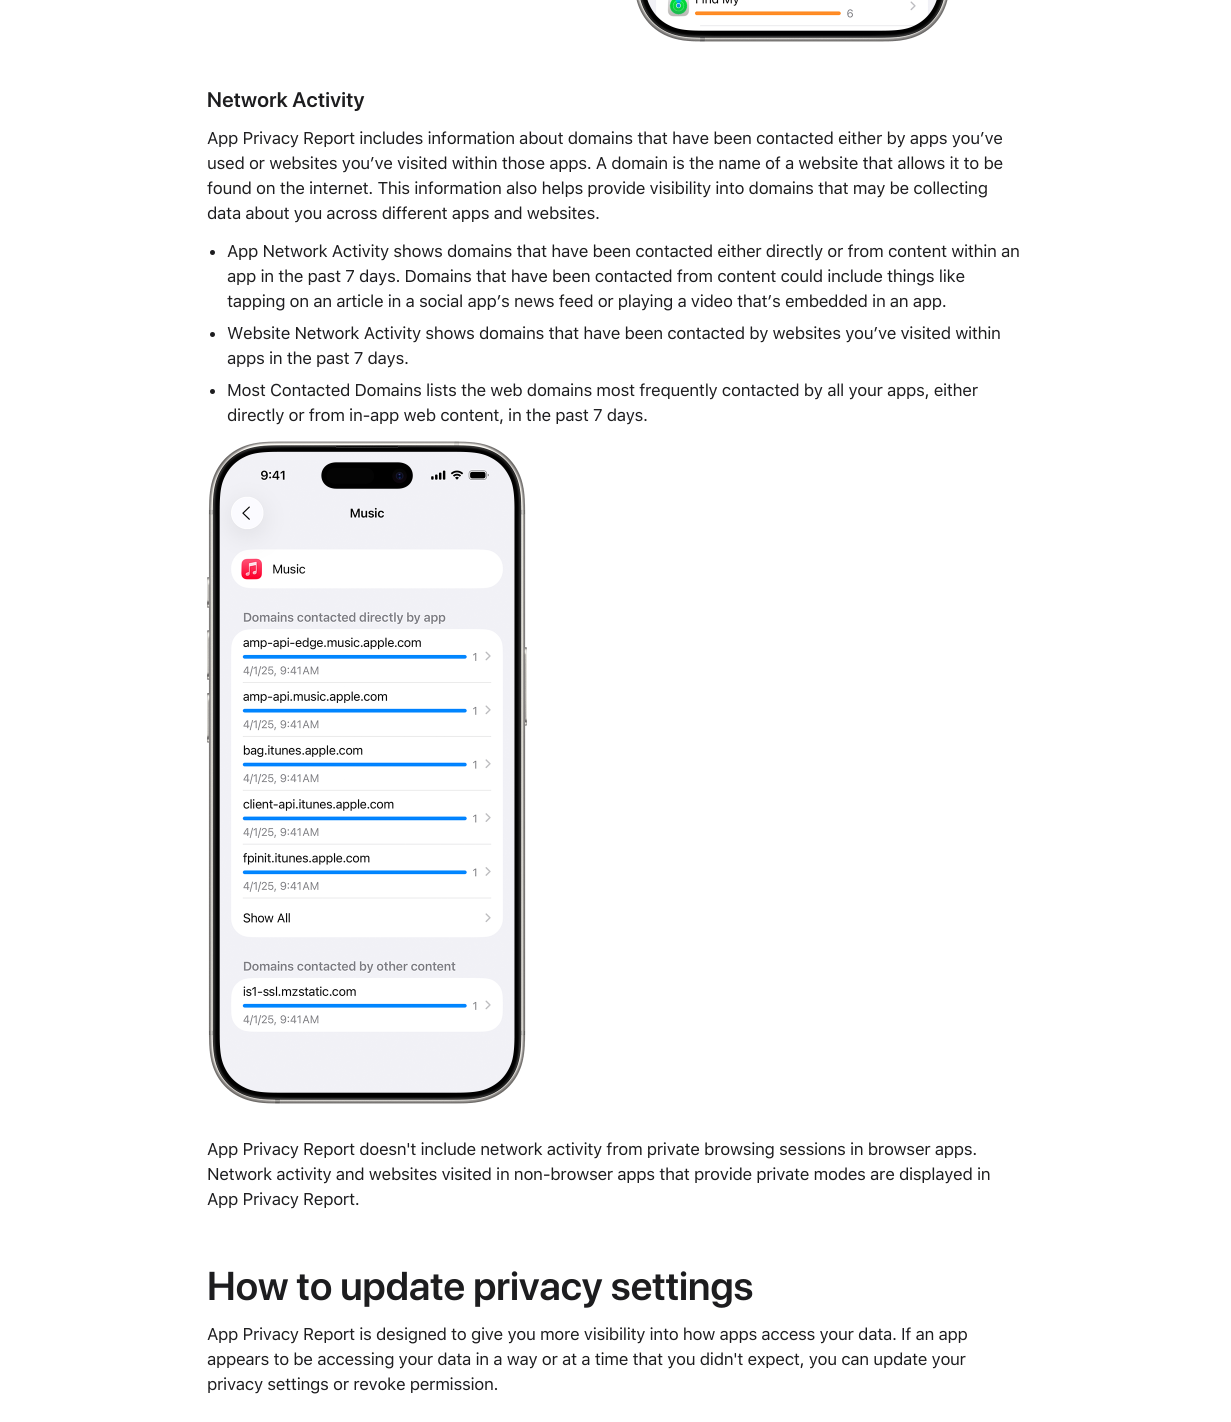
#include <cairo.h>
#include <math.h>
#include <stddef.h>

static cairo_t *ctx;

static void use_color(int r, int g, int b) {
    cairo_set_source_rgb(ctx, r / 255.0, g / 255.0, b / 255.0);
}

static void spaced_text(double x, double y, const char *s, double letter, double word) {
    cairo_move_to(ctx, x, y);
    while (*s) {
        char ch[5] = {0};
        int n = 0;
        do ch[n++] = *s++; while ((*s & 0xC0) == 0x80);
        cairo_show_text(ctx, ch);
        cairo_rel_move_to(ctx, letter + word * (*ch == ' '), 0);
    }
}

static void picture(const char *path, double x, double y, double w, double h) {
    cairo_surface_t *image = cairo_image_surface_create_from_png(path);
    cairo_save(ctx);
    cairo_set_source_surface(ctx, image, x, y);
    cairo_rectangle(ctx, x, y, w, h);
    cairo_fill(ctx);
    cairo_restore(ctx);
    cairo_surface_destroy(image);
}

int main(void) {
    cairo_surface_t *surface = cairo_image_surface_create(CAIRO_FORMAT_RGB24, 1231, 1422);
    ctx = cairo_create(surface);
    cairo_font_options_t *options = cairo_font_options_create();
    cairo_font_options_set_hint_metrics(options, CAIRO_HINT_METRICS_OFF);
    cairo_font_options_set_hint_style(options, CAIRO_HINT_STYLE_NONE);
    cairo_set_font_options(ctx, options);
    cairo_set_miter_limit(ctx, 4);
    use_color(255, 255, 255);
    cairo_paint(ctx);
    picture("img1.png", 636, 0, 312, 42);
    cairo_select_font_face(ctx, "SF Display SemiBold", CAIRO_FONT_SLANT_NORMAL, CAIRO_FONT_WEIGHT_NORMAL);
    cairo_set_font_size(ctx, 21);
    use_color(29, 29, 31);
    spaced_text(207, 107, "Network Activity", 0.25, 0);
    cairo_select_font_face(ctx, "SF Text", CAIRO_FONT_SLANT_NORMAL, CAIRO_FONT_WEIGHT_NORMAL);
    cairo_set_font_size(ctx, 17);
    spaced_text(207, 144, "App Privacy Report includes information about domains that have been contacted either by apps you’ve", -0.37, 0);
    spaced_text(207, 169, "used or websites you’ve visited within those apps. A domain is the name of a website that allows it to be", -0.37, 0);
    spaced_text(207, 194, "found on the internet. This information also helps provide visibility into domains that may be collecting", -0.37, 0);
    spaced_text(207, 219, "data about you across different apps and websites.", -0.37, 0);
    cairo_new_path(ctx);
    cairo_arc(ctx, 212.5, 252.5, 2.5, 0, 2 * M_PI);
    cairo_fill(ctx);
    spaced_text(227, 257, "App Network Activity shows domains that have been contacted either directly or from content within an", -0.37, 0);
    spaced_text(227, 282, "app in the past 7 days. Domains that have been contacted from content could include things like", -0.37, 0);
    spaced_text(227, 307, "tapping on an article in a social app’s news feed or playing a video that’s embedded in an app.", -0.37, 0);
    cairo_new_path(ctx);
    cairo_arc(ctx, 212.5, 334.5, 2.5, 0, 2 * M_PI);
    cairo_fill(ctx);
    spaced_text(227, 339, "Website Network Activity shows domains that have been contacted by websites you’ve visited within", -0.37, 0);
    spaced_text(227, 364, "apps in the past 7 days.", -0.37, 0);
    cairo_new_path(ctx);
    cairo_arc(ctx, 212.5, 391.5, 2.5, 0, 2 * M_PI);
    cairo_fill(ctx);
    spaced_text(227, 396, "Most Contacted Domains lists the web domains most frequently contacted by all your apps, either", -0.37, 0);
    spaced_text(227, 421, "directly or from in-app web content, in the past 7 days.", -0.37, 0);
    picture("img2.png", 207, 441, 320, 663);
    spaced_text(207, 1155, "App Privacy Report doesn't include network activity from private browsing sessions in browser apps.", -0.37, 0);
    spaced_text(207, 1180, "Network activity and websites visited in non-browser apps that provide private modes are displayed in", -0.37, 0);
    spaced_text(207, 1205, "App Privacy Report.", -0.37, 0);
    cairo_select_font_face(ctx, "SF Display SemiBold", CAIRO_FONT_SLANT_NORMAL, CAIRO_FONT_WEIGHT_NORMAL);
    cairo_set_font_size(ctx, 40);
    cairo_move_to(ctx, 207, 1300);
    cairo_show_text(ctx, "How to update privacy settings");
    cairo_select_font_face(ctx, "SF Text", CAIRO_FONT_SLANT_NORMAL, CAIRO_FONT_WEIGHT_NORMAL);
    cairo_set_font_size(ctx, 17);
    spaced_text(207, 1340, "App Privacy Report is designed to give you more visibility into how apps access your data. If an app", -0.37, 0);
    spaced_text(207, 1365, "appears to be accessing your data in a way or at a time that you didn't expect, you can update your", -0.37, 0);
    spaced_text(207, 1390, "privacy settings or revoke permission.", -0.37, 0);
    cairo_surface_write_to_png(surface, "result.png");
    cairo_font_options_destroy(options);
    cairo_destroy(ctx);
    cairo_surface_destroy(surface);
    return 0;
}
